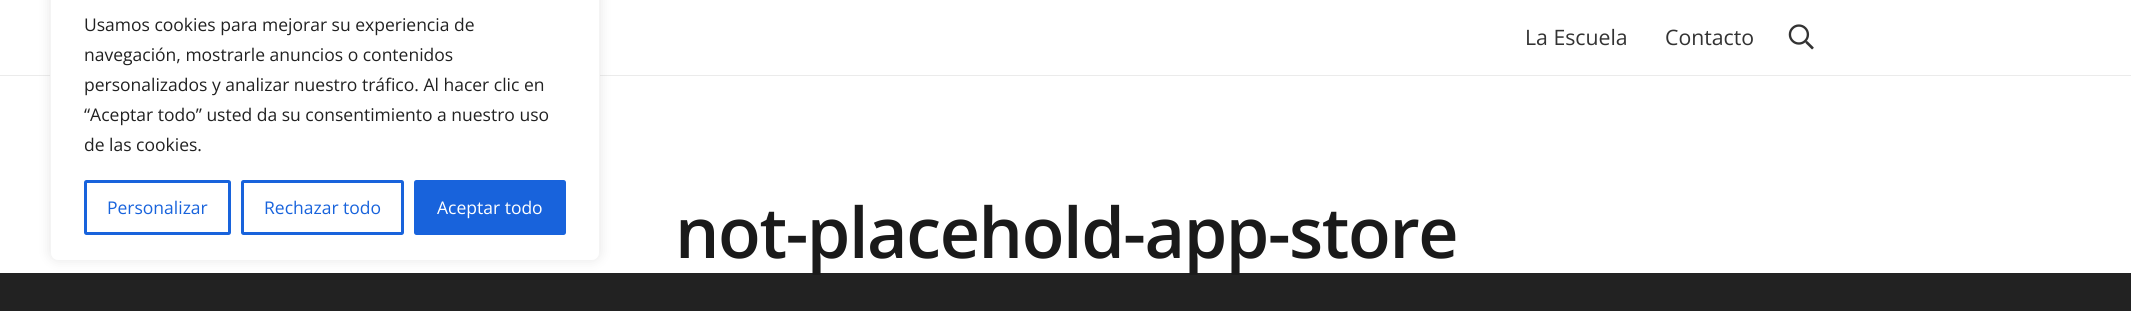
#include <cairo.h>
#include <math.h>
#include <stddef.h>

static cairo_t *ctx;

static void use_color(int r, int g, int b) {
    cairo_set_source_rgb(ctx, r / 255.0, g / 255.0, b / 255.0);
}

static void spaced_text(double x, double y, const char *s, double letter, double word) {
    cairo_move_to(ctx, x, y);
    while (*s) {
        char ch[5] = {0};
        int n = 0;
        do ch[n++] = *s++; while ((*s & 0xC0) == 0x80);
        cairo_show_text(ctx, ch);
        cairo_rel_move_to(ctx, letter + word * (*ch == ' '), 0);
    }
}

static void round_rect(double x, double y, double w, double h, double r) {
    cairo_new_sub_path(ctx);
    cairo_arc(ctx, x + w - r, y + h - r, r, 0, M_PI / 2);
    cairo_arc(ctx, x + r, y + h - r, r, M_PI / 2, M_PI);
    cairo_arc(ctx, x + r, y + r, r, M_PI, 1.5 * M_PI);
    cairo_arc(ctx, x + w - r, y + r, r, 1.5 * M_PI, 2 * M_PI);
    cairo_close_path(ctx);
}

static void shadow(double x, double y, double w, double h, double r, double blur, double alpha) {
    cairo_push_group_with_content(ctx, CAIRO_CONTENT_ALPHA);
    cairo_set_operator(ctx, CAIRO_OPERATOR_SOURCE);
    for (int i = 15; i >= -15 && fmin(w, h) + blur * i / 3 > 0; i -= 2) {
        double e = blur * i / 6;
        cairo_set_source_rgba(ctx, 0, 0, 0, alpha * erfc((i - 1) / 8.5) / 2);
        round_rect(x - e, y - e, w + 2 * e, h + 2 * e, fmax(0, fmin(r + e + blur * .6, fmin(w, h) / 2 + e)));
        cairo_fill(ctx);
    }
    cairo_pattern_t *soft = cairo_pop_group(ctx);
    cairo_mask(ctx, soft);
    cairo_pattern_destroy(soft);
}

static void picture(const char *path, double x, double y, double w, double h) {
    cairo_surface_t *image = cairo_image_surface_create_from_png(path);
    cairo_save(ctx);
    cairo_set_source_surface(ctx, image, x, y);
    cairo_rectangle(ctx, x, y, w, h);
    cairo_fill(ctx);
    cairo_restore(ctx);
    cairo_surface_destroy(image);
}

int main(void) {
    cairo_surface_t *surface = cairo_image_surface_create(CAIRO_FORMAT_RGB24, 2131, 311);
    ctx = cairo_create(surface);
    cairo_font_options_t *options = cairo_font_options_create();
    cairo_font_options_set_hint_metrics(options, CAIRO_HINT_METRICS_OFF);
    cairo_font_options_set_hint_style(options, CAIRO_HINT_STYLE_NONE);
    cairo_set_font_options(ctx, options);
    cairo_set_miter_limit(ctx, 4);
    use_color(34, 34, 34);
    cairo_paint(ctx);
    use_color(255, 255, 255);
    cairo_rectangle(ctx, 0, 0, 2131, 273);
    cairo_fill(ctx);
    use_color(235, 235, 235);
    cairo_rectangle(ctx, 0, 75, 2131, 1);
    cairo_fill(ctx);
    use_color(172, 171, 171);
    shadow(50, -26, 550, 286, 8, 6, 0.3);
    use_color(255, 255, 255);
    round_rect(50.5, -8.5, 549, 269, 7.5);
    cairo_fill_preserve(ctx);
    use_color(244, 244, 244);
    cairo_set_line_width(ctx, 1);
    cairo_stroke(ctx);
    cairo_select_font_face(ctx, "Open Sans", CAIRO_FONT_SLANT_NORMAL, CAIRO_FONT_WEIGHT_NORMAL);
    cairo_set_font_size(ctx, 17.5);
    use_color(33, 33, 33);
    cairo_move_to(ctx, 84, 31);
    cairo_show_text(ctx, "Usamos cookies para mejorar su experiencia de");
    cairo_move_to(ctx, 84, 61);
    cairo_show_text(ctx, "navegación, mostrarle anuncios o contenidos");
    cairo_move_to(ctx, 84, 91);
    cairo_show_text(ctx, "personalizados y analizar nuestro tráfico. Al hacer clic en");
    cairo_move_to(ctx, 84, 121);
    cairo_show_text(ctx, "“Aceptar todo” usted da su consentimiento a nuestro uso");
    cairo_move_to(ctx, 84, 151);
    cairo_show_text(ctx, "de las cookies.");
    round_rect(85.5, 181.5, 144, 52, 1);
    use_color(24, 99, 220);
    cairo_set_line_width(ctx, 3);
    cairo_stroke(ctx);
    cairo_move_to(ctx, 107, 214);
    cairo_show_text(ctx, "Personalizar");
    round_rect(242.5, 181.5, 160, 52, 1);
    cairo_stroke(ctx);
    cairo_move_to(ctx, 264, 214);
    cairo_show_text(ctx, "Rechazar todo");
    round_rect(415.5, 181.5, 149, 52, 1);
    cairo_fill_preserve(ctx);
    cairo_stroke(ctx);
    use_color(255, 255, 255);
    cairo_move_to(ctx, 437, 214);
    cairo_show_text(ctx, "Aceptar todo");
    cairo_set_font_size(ctx, 21.25);
    use_color(51, 51, 51);
    cairo_move_to(ctx, 1525, 45);
    cairo_show_text(ctx, "La Escuela");
    cairo_move_to(ctx, 1665, 45);
    cairo_show_text(ctx, "Contacto");
    picture("img1.png", 1788, 24, 26, 26);
    cairo_select_font_face(ctx, "Open Sans SemiBold", CAIRO_FONT_SLANT_NORMAL, CAIRO_FONT_WEIGHT_NORMAL);
    cairo_set_font_size(ctx, 70);
    use_color(26, 26, 26);
    spaced_text(675, 258, "not-placehold-app-store", -1.4, 0);
    cairo_surface_write_to_png(surface, "result.png");
    cairo_font_options_destroy(options);
    cairo_destroy(ctx);
    cairo_surface_destroy(surface);
    return 0;
}
